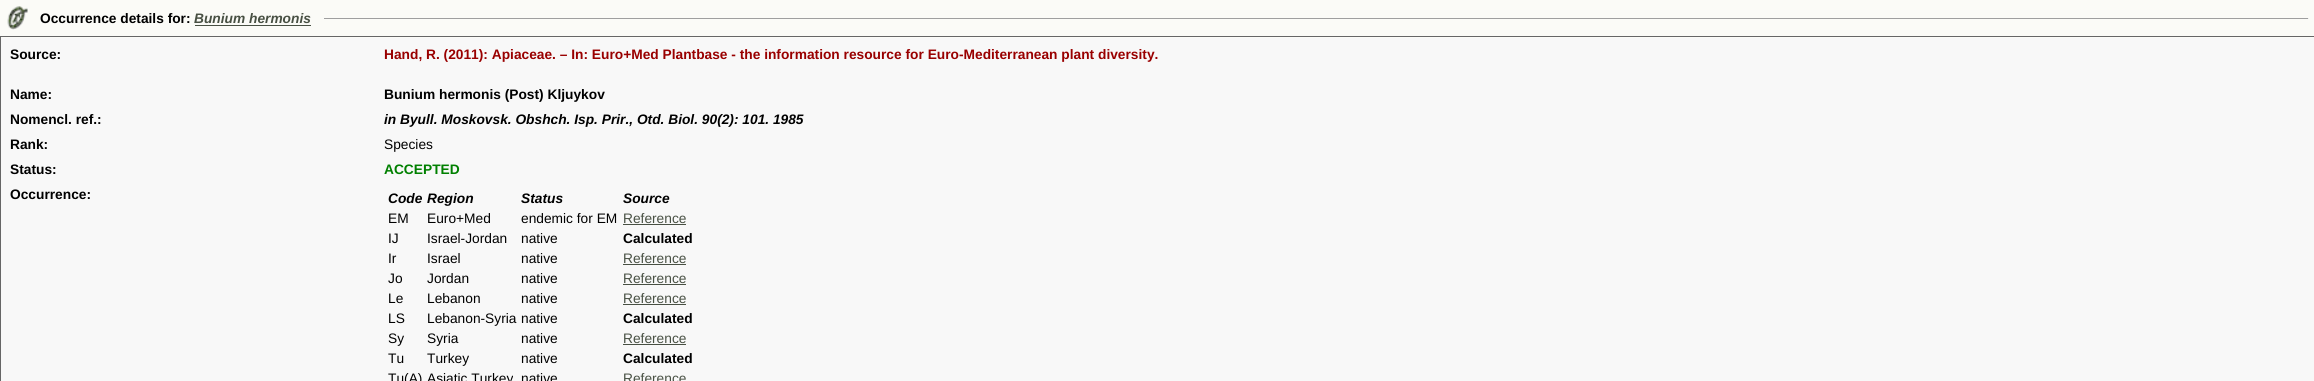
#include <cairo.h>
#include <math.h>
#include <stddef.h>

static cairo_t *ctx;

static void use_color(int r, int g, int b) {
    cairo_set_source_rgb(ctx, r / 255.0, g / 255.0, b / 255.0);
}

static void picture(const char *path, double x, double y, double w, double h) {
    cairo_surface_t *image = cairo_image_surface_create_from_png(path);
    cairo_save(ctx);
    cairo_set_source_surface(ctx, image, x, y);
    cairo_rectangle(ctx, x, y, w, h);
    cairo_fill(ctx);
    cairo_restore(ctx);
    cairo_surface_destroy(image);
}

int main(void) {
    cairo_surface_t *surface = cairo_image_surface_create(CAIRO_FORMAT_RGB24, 2314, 381);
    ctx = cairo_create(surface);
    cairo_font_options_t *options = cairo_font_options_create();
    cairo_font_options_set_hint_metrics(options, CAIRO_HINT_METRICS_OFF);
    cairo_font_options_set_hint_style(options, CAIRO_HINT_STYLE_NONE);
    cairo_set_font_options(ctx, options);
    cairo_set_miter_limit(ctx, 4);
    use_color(251, 251, 247);
    cairo_paint(ctx);
    picture("img1.png", 7, 6, 21, 24);
    cairo_select_font_face(ctx, "Liberation Sans", CAIRO_FONT_SLANT_NORMAL, CAIRO_FONT_WEIGHT_BOLD);
    cairo_set_font_size(ctx, 13.75);
    use_color(0, 0, 0);
    cairo_move_to(ctx, 40, 23);
    cairo_show_text(ctx, "Occurrence details for:");
    cairo_select_font_face(ctx, "Liberation Sans", CAIRO_FONT_SLANT_ITALIC, CAIRO_FONT_WEIGHT_BOLD);
    use_color(72, 80, 67);
    cairo_move_to(ctx, 194, 23);
    cairo_show_text(ctx, "Bunium hermonis");
    cairo_rectangle(ctx, 195, 25, 116, 1);
    cairo_fill(ctx);
    use_color(159, 159, 159);
    cairo_rectangle(ctx, 324, 18, 1985, 1);
    cairo_fill(ctx);
    use_color(238, 238, 238);
    cairo_rectangle(ctx, 2308, 18, 1, 1);
    cairo_fill(ctx);
    use_color(102, 102, 102);
    cairo_rectangle(ctx, 0, 36, 2314, 1);
    cairo_fill(ctx);
    cairo_rectangle(ctx, 0, 36, 1, 345);
    cairo_fill(ctx);
    use_color(248, 248, 248);
    cairo_rectangle(ctx, 1, 38, 2313, 343);
    cairo_fill(ctx);
    cairo_select_font_face(ctx, "Liberation Sans", CAIRO_FONT_SLANT_NORMAL, CAIRO_FONT_WEIGHT_BOLD);
    use_color(0, 0, 0);
    cairo_move_to(ctx, 10, 59);
    cairo_show_text(ctx, "Source:");
    use_color(153, 0, 0);
    cairo_move_to(ctx, 384, 59);
    cairo_show_text(ctx, "Hand, R. (2011): Apiaceae. – In: Euro+Med Plantbase - the information resource for Euro-Mediterranean plant diversity.");
    use_color(0, 0, 0);
    cairo_move_to(ctx, 10, 99);
    cairo_show_text(ctx, "Name:");
    cairo_move_to(ctx, 384, 99);
    cairo_show_text(ctx, "Bunium hermonis (Post) Kljuykov");
    cairo_move_to(ctx, 10, 124);
    cairo_show_text(ctx, "Nomencl. ref.:");
    cairo_select_font_face(ctx, "Liberation Sans", CAIRO_FONT_SLANT_ITALIC, CAIRO_FONT_WEIGHT_BOLD);
    cairo_move_to(ctx, 384, 124);
    cairo_show_text(ctx, "in Byull. Moskovsk. Obshch. Isp. Prir., Otd. Biol. 90(2): 101. 1985");
    cairo_select_font_face(ctx, "Liberation Sans", CAIRO_FONT_SLANT_NORMAL, CAIRO_FONT_WEIGHT_BOLD);
    cairo_move_to(ctx, 10, 149);
    cairo_show_text(ctx, "Rank:");
    cairo_select_font_face(ctx, "Liberation Sans", CAIRO_FONT_SLANT_NORMAL, CAIRO_FONT_WEIGHT_NORMAL);
    cairo_move_to(ctx, 384, 149);
    cairo_show_text(ctx, "Species");
    cairo_select_font_face(ctx, "Liberation Sans", CAIRO_FONT_SLANT_NORMAL, CAIRO_FONT_WEIGHT_BOLD);
    cairo_move_to(ctx, 10, 174);
    cairo_show_text(ctx, "Status:");
    use_color(0, 128, 0);
    cairo_move_to(ctx, 384, 174);
    cairo_show_text(ctx, "ACCEPTED");
    use_color(0, 0, 0);
    cairo_move_to(ctx, 10, 199);
    cairo_show_text(ctx, "Occurrence:");
    cairo_select_font_face(ctx, "Liberation Sans", CAIRO_FONT_SLANT_ITALIC, CAIRO_FONT_WEIGHT_BOLD);
    cairo_move_to(ctx, 388, 203);
    cairo_show_text(ctx, "Code");
    cairo_move_to(ctx, 427, 203);
    cairo_show_text(ctx, "Region");
    cairo_move_to(ctx, 521, 203);
    cairo_show_text(ctx, "Status");
    cairo_move_to(ctx, 623, 203);
    cairo_show_text(ctx, "Source");
    cairo_select_font_face(ctx, "Liberation Sans", CAIRO_FONT_SLANT_NORMAL, CAIRO_FONT_WEIGHT_NORMAL);
    cairo_move_to(ctx, 388, 223);
    cairo_show_text(ctx, "EM");
    cairo_move_to(ctx, 427, 223);
    cairo_show_text(ctx, "Euro+Med");
    cairo_move_to(ctx, 521, 223);
    cairo_show_text(ctx, "endemic for EM");
    use_color(72, 80, 67);
    cairo_move_to(ctx, 623, 223);
    cairo_show_text(ctx, "Reference");
    cairo_rectangle(ctx, 623, 224, 63, 1);
    cairo_fill(ctx);
    use_color(0, 0, 0);
    cairo_move_to(ctx, 388, 243);
    cairo_show_text(ctx, "IJ");
    cairo_move_to(ctx, 427, 243);
    cairo_show_text(ctx, "Israel-Jordan");
    cairo_move_to(ctx, 521, 243);
    cairo_show_text(ctx, "native");
    cairo_select_font_face(ctx, "Liberation Sans", CAIRO_FONT_SLANT_NORMAL, CAIRO_FONT_WEIGHT_BOLD);
    cairo_move_to(ctx, 623, 243);
    cairo_show_text(ctx, "Calculated");
    cairo_select_font_face(ctx, "Liberation Sans", CAIRO_FONT_SLANT_NORMAL, CAIRO_FONT_WEIGHT_NORMAL);
    cairo_move_to(ctx, 388, 263);
    cairo_show_text(ctx, "Ir");
    cairo_move_to(ctx, 427, 263);
    cairo_show_text(ctx, "Israel");
    cairo_move_to(ctx, 521, 263);
    cairo_show_text(ctx, "native");
    use_color(72, 80, 67);
    cairo_move_to(ctx, 623, 263);
    cairo_show_text(ctx, "Reference");
    cairo_rectangle(ctx, 623, 264, 63, 1);
    cairo_fill(ctx);
    use_color(0, 0, 0);
    cairo_move_to(ctx, 388, 283);
    cairo_show_text(ctx, "Jo");
    cairo_move_to(ctx, 427, 283);
    cairo_show_text(ctx, "Jordan");
    cairo_move_to(ctx, 521, 283);
    cairo_show_text(ctx, "native");
    use_color(72, 80, 67);
    cairo_move_to(ctx, 623, 283);
    cairo_show_text(ctx, "Reference");
    cairo_rectangle(ctx, 623, 284, 63, 1);
    cairo_fill(ctx);
    use_color(0, 0, 0);
    cairo_move_to(ctx, 388, 303);
    cairo_show_text(ctx, "Le");
    cairo_move_to(ctx, 427, 303);
    cairo_show_text(ctx, "Lebanon");
    cairo_move_to(ctx, 521, 303);
    cairo_show_text(ctx, "native");
    use_color(72, 80, 67);
    cairo_move_to(ctx, 623, 303);
    cairo_show_text(ctx, "Reference");
    cairo_rectangle(ctx, 623, 304, 63, 1);
    cairo_fill(ctx);
    use_color(0, 0, 0);
    cairo_move_to(ctx, 388, 323);
    cairo_show_text(ctx, "LS");
    cairo_move_to(ctx, 427, 323);
    cairo_show_text(ctx, "Lebanon-Syria");
    cairo_move_to(ctx, 521, 323);
    cairo_show_text(ctx, "native");
    cairo_select_font_face(ctx, "Liberation Sans", CAIRO_FONT_SLANT_NORMAL, CAIRO_FONT_WEIGHT_BOLD);
    cairo_move_to(ctx, 623, 323);
    cairo_show_text(ctx, "Calculated");
    cairo_select_font_face(ctx, "Liberation Sans", CAIRO_FONT_SLANT_NORMAL, CAIRO_FONT_WEIGHT_NORMAL);
    cairo_move_to(ctx, 388, 343);
    cairo_show_text(ctx, "Sy");
    cairo_move_to(ctx, 427, 343);
    cairo_show_text(ctx, "Syria");
    cairo_move_to(ctx, 521, 343);
    cairo_show_text(ctx, "native");
    use_color(72, 80, 67);
    cairo_move_to(ctx, 623, 343);
    cairo_show_text(ctx, "Reference");
    cairo_rectangle(ctx, 623, 344, 63, 1);
    cairo_fill(ctx);
    use_color(0, 0, 0);
    cairo_move_to(ctx, 388, 363);
    cairo_show_text(ctx, "Tu");
    cairo_move_to(ctx, 427, 363);
    cairo_show_text(ctx, "Turkey");
    cairo_move_to(ctx, 521, 363);
    cairo_show_text(ctx, "native");
    cairo_select_font_face(ctx, "Liberation Sans", CAIRO_FONT_SLANT_NORMAL, CAIRO_FONT_WEIGHT_BOLD);
    cairo_move_to(ctx, 623, 363);
    cairo_show_text(ctx, "Calculated");
    cairo_select_font_face(ctx, "Liberation Sans", CAIRO_FONT_SLANT_NORMAL, CAIRO_FONT_WEIGHT_NORMAL);
    cairo_move_to(ctx, 388, 383);
    cairo_show_text(ctx, "Tu(A)");
    cairo_move_to(ctx, 427, 383);
    cairo_show_text(ctx, "Asiatic Turkey");
    cairo_move_to(ctx, 521, 383);
    cairo_show_text(ctx, "native");
    use_color(72, 80, 67);
    cairo_move_to(ctx, 623, 383);
    cairo_show_text(ctx, "Reference");
    cairo_surface_write_to_png(surface, "result.png");
    cairo_font_options_destroy(options);
    cairo_destroy(ctx);
    cairo_surface_destroy(surface);
    return 0;
}
